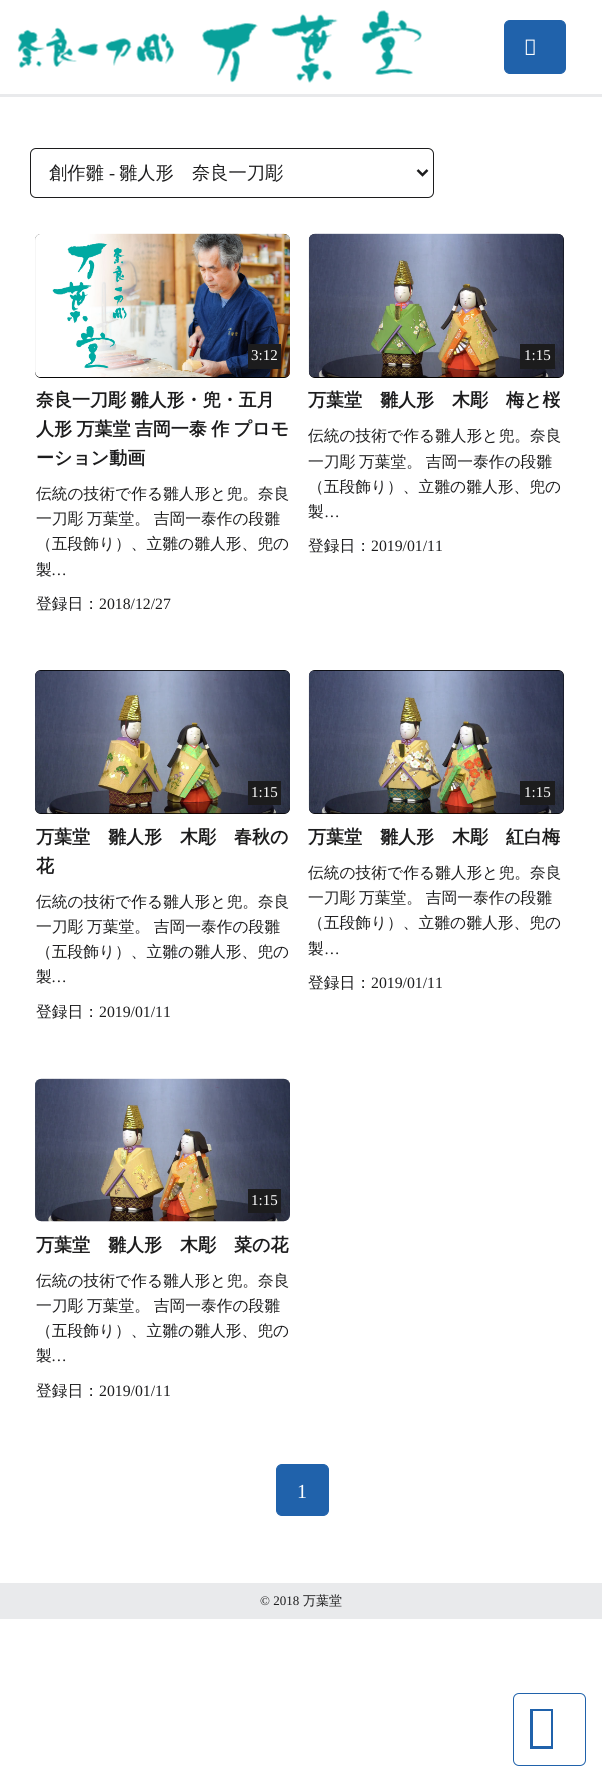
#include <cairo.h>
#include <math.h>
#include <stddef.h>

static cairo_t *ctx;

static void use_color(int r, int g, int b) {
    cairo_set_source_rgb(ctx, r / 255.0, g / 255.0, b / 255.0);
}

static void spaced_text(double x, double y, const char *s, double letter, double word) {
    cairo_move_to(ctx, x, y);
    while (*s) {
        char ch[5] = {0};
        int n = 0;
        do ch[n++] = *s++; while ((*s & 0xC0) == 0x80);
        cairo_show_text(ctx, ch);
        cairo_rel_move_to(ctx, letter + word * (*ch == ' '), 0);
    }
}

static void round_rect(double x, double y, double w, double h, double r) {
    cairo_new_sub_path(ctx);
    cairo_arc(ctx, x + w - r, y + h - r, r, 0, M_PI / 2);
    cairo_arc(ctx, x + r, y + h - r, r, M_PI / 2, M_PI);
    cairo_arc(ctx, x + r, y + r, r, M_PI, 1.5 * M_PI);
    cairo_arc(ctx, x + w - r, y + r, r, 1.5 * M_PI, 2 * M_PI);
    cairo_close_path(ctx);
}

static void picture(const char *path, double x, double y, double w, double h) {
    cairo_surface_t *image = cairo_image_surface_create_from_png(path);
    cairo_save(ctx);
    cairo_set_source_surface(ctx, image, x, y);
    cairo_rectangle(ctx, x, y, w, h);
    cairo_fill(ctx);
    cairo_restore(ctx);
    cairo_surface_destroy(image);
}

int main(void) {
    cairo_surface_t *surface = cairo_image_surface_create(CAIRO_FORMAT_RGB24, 602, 1782);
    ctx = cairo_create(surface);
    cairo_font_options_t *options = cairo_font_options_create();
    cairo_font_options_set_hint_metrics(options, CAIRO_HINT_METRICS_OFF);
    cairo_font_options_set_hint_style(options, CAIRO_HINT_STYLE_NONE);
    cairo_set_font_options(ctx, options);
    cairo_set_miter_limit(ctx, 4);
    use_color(255, 255, 255);
    cairo_paint(ctx);
    use_color(233, 234, 236);
    cairo_rectangle(ctx, 0, 94, 602, 3);
    cairo_fill(ctx);
    picture("img1.png", 17, 10, 405, 73);
    use_color(32, 98, 171);
    round_rect(504.5, 20.5, 61, 53, 5.5);
    cairo_fill_preserve(ctx);
    cairo_set_line_width(ctx, 1);
    cairo_stroke(ctx);
    picture("img2.png", 525, 39, 10, 16);
    round_rect(30.5, 148.5, 403, 49, 5.5);
    use_color(28, 28, 29);
    cairo_stroke(ctx);
    cairo_new_path(ctx);
    cairo_move_to(ctx, 417.5, 170);
    cairo_line_to(ctx, 422.5, 175);
    cairo_line_to(ctx, 427.5, 170);
    cairo_set_line_width(ctx, 2.5);
    cairo_stroke(ctx);
    cairo_select_font_face(ctx, "WenQuanYi Zen Hei Medium", CAIRO_FONT_SLANT_NORMAL, CAIRO_FONT_WEIGHT_NORMAL);
    cairo_set_font_size(ctx, 18.25);
    cairo_move_to(ctx, 49, 179);
    cairo_show_text(ctx, "創作雛");
    cairo_select_font_face(ctx, "Liberation Serif", CAIRO_FONT_SLANT_NORMAL, CAIRO_FONT_WEIGHT_NORMAL);
    cairo_move_to(ctx, 109, 179);
    cairo_show_text(ctx, "-");
    cairo_select_font_face(ctx, "WenQuanYi Zen Hei Medium", CAIRO_FONT_SLANT_NORMAL, CAIRO_FONT_WEIGHT_NORMAL);
    cairo_move_to(ctx, 119, 179);
    cairo_show_text(ctx, "雛人形　奈良一刀彫");
    use_color(0, 0, 0);
    round_rect(35, 234, 255, 144, 6);
    cairo_fill(ctx);
    picture("img3.png", 35, 233, 255, 145);
    use_color(28, 28, 29);
    cairo_rectangle(ctx, 248, 344, 33, 25);
    cairo_fill(ctx);
    cairo_select_font_face(ctx, "Liberation Serif", CAIRO_FONT_SLANT_NORMAL, CAIRO_FONT_WEIGHT_NORMAL);
    cairo_set_font_size(ctx, 15);
    use_color(255, 255, 255);
    cairo_move_to(ctx, 251, 360);
    cairo_show_text(ctx, "3:12");
    cairo_select_font_face(ctx, "WenQuanYi Zen Hei", CAIRO_FONT_SLANT_NORMAL, CAIRO_FONT_WEIGHT_BOLD);
    cairo_set_font_size(ctx, 18);
    use_color(28, 28, 29);
    spaced_text(36, 406, "奈良一刀彫 雛人形・兜・五月", 0, -1);
    spaced_text(36, 435, "人形 万葉堂 吉岡一泰 作 プロモ", 0, -1);
    cairo_move_to(ctx, 36, 464);
    cairo_show_text(ctx, "ーション動画");
    cairo_select_font_face(ctx, "WenQuanYi Zen Hei Medium", CAIRO_FONT_SLANT_NORMAL, CAIRO_FONT_WEIGHT_NORMAL);
    cairo_set_font_size(ctx, 15.75);
    cairo_move_to(ctx, 36, 499);
    cairo_show_text(ctx, "伝統の技術で作る雛人形と兜。奈良");
    spaced_text(36, 524, "一刀彫 万葉堂。 吉岡一泰作の段雛", 0, -1);
    cairo_move_to(ctx, 36, 549);
    cairo_show_text(ctx, "（五段飾り）、立雛の雛人形、兜の");
    cairo_move_to(ctx, 36, 575);
    cairo_show_text(ctx, "製");
    cairo_select_font_face(ctx, "Liberation Serif", CAIRO_FONT_SLANT_NORMAL, CAIRO_FONT_WEIGHT_NORMAL);
    cairo_move_to(ctx, 51, 575);
    cairo_show_text(ctx, "…");
    cairo_select_font_face(ctx, "WenQuanYi Zen Hei Medium", CAIRO_FONT_SLANT_NORMAL, CAIRO_FONT_WEIGHT_NORMAL);
    cairo_move_to(ctx, 36, 609);
    cairo_show_text(ctx, "登録日：");
    cairo_select_font_face(ctx, "Liberation Serif", CAIRO_FONT_SLANT_NORMAL, CAIRO_FONT_WEIGHT_NORMAL);
    cairo_move_to(ctx, 99, 609);
    cairo_show_text(ctx, "2018/12/27");
    use_color(0, 0, 0);
    round_rect(309, 234, 255, 144, 6);
    cairo_fill(ctx);
    picture("img4.png", 308, 233, 256, 145);
    use_color(28, 28, 29);
    cairo_rectangle(ctx, 520, 344, 35, 25);
    cairo_fill(ctx);
    cairo_set_font_size(ctx, 15);
    use_color(255, 255, 255);
    cairo_move_to(ctx, 524, 360);
    cairo_show_text(ctx, "1:15");
    cairo_select_font_face(ctx, "WenQuanYi Zen Hei", CAIRO_FONT_SLANT_NORMAL, CAIRO_FONT_WEIGHT_BOLD);
    cairo_set_font_size(ctx, 18);
    use_color(28, 28, 29);
    cairo_move_to(ctx, 308, 406);
    cairo_show_text(ctx, "万葉堂　雛人形　木彫　梅と桜");
    cairo_select_font_face(ctx, "WenQuanYi Zen Hei Medium", CAIRO_FONT_SLANT_NORMAL, CAIRO_FONT_WEIGHT_NORMAL);
    cairo_set_font_size(ctx, 15.75);
    cairo_move_to(ctx, 308, 441);
    cairo_show_text(ctx, "伝統の技術で作る雛人形と兜。奈良");
    spaced_text(308, 467, "一刀彫 万葉堂。 吉岡一泰作の段雛", 0, -1);
    cairo_move_to(ctx, 308, 492);
    cairo_show_text(ctx, "（五段飾り）、立雛の雛人形、兜の");
    cairo_move_to(ctx, 308, 517);
    cairo_show_text(ctx, "製");
    cairo_select_font_face(ctx, "Liberation Serif", CAIRO_FONT_SLANT_NORMAL, CAIRO_FONT_WEIGHT_NORMAL);
    cairo_move_to(ctx, 324, 517);
    cairo_show_text(ctx, "…");
    cairo_select_font_face(ctx, "WenQuanYi Zen Hei Medium", CAIRO_FONT_SLANT_NORMAL, CAIRO_FONT_WEIGHT_NORMAL);
    cairo_move_to(ctx, 308, 551);
    cairo_show_text(ctx, "登録日：");
    cairo_select_font_face(ctx, "Liberation Serif", CAIRO_FONT_SLANT_NORMAL, CAIRO_FONT_WEIGHT_NORMAL);
    cairo_move_to(ctx, 371, 551);
    cairo_show_text(ctx, "2019/01/11");
    use_color(0, 0, 0);
    round_rect(35, 670, 255, 144, 6);
    cairo_fill(ctx);
    picture("img5.png", 35, 670, 255, 144);
    use_color(28, 28, 29);
    cairo_rectangle(ctx, 248, 781, 33, 24);
    cairo_fill(ctx);
    cairo_set_font_size(ctx, 15);
    use_color(255, 255, 255);
    cairo_move_to(ctx, 251, 797);
    cairo_show_text(ctx, "1:15");
    cairo_select_font_face(ctx, "WenQuanYi Zen Hei", CAIRO_FONT_SLANT_NORMAL, CAIRO_FONT_WEIGHT_BOLD);
    cairo_set_font_size(ctx, 18);
    use_color(28, 28, 29);
    cairo_move_to(ctx, 36, 843);
    cairo_show_text(ctx, "万葉堂　雛人形　木彫　春秋の");
    cairo_move_to(ctx, 36, 872);
    cairo_show_text(ctx, "花");
    cairo_select_font_face(ctx, "WenQuanYi Zen Hei Medium", CAIRO_FONT_SLANT_NORMAL, CAIRO_FONT_WEIGHT_NORMAL);
    cairo_set_font_size(ctx, 15.75);
    cairo_move_to(ctx, 36, 907);
    cairo_show_text(ctx, "伝統の技術で作る雛人形と兜。奈良");
    spaced_text(36, 932, "一刀彫 万葉堂。 吉岡一泰作の段雛", 0, -1);
    cairo_move_to(ctx, 36, 957);
    cairo_show_text(ctx, "（五段飾り）、立雛の雛人形、兜の");
    cairo_move_to(ctx, 36, 982);
    cairo_show_text(ctx, "製");
    cairo_select_font_face(ctx, "Liberation Serif", CAIRO_FONT_SLANT_NORMAL, CAIRO_FONT_WEIGHT_NORMAL);
    cairo_move_to(ctx, 51, 982);
    cairo_show_text(ctx, "…");
    cairo_select_font_face(ctx, "WenQuanYi Zen Hei Medium", CAIRO_FONT_SLANT_NORMAL, CAIRO_FONT_WEIGHT_NORMAL);
    cairo_move_to(ctx, 36, 1017);
    cairo_show_text(ctx, "登録日：");
    cairo_select_font_face(ctx, "Liberation Serif", CAIRO_FONT_SLANT_NORMAL, CAIRO_FONT_WEIGHT_NORMAL);
    cairo_move_to(ctx, 99, 1017);
    cairo_show_text(ctx, "2019/01/11");
    use_color(0, 0, 0);
    round_rect(309, 670, 255, 144, 6);
    cairo_fill(ctx);
    picture("img6.png", 308, 670, 256, 144);
    use_color(28, 28, 29);
    cairo_rectangle(ctx, 520, 781, 35, 24);
    cairo_fill(ctx);
    cairo_set_font_size(ctx, 15);
    use_color(255, 255, 255);
    cairo_move_to(ctx, 524, 797);
    cairo_show_text(ctx, "1:15");
    cairo_select_font_face(ctx, "WenQuanYi Zen Hei", CAIRO_FONT_SLANT_NORMAL, CAIRO_FONT_WEIGHT_BOLD);
    cairo_set_font_size(ctx, 18);
    use_color(28, 28, 29);
    cairo_move_to(ctx, 308, 843);
    cairo_show_text(ctx, "万葉堂　雛人形　木彫　紅白梅");
    cairo_select_font_face(ctx, "WenQuanYi Zen Hei Medium", CAIRO_FONT_SLANT_NORMAL, CAIRO_FONT_WEIGHT_NORMAL);
    cairo_set_font_size(ctx, 15.75);
    cairo_move_to(ctx, 308, 878);
    cairo_show_text(ctx, "伝統の技術で作る雛人形と兜。奈良");
    spaced_text(308, 903, "一刀彫 万葉堂。 吉岡一泰作の段雛", 0, -1);
    cairo_move_to(ctx, 308, 928);
    cairo_show_text(ctx, "（五段飾り）、立雛の雛人形、兜の");
    cairo_move_to(ctx, 308, 954);
    cairo_show_text(ctx, "製");
    cairo_select_font_face(ctx, "Liberation Serif", CAIRO_FONT_SLANT_NORMAL, CAIRO_FONT_WEIGHT_NORMAL);
    cairo_move_to(ctx, 324, 954);
    cairo_show_text(ctx, "…");
    cairo_select_font_face(ctx, "WenQuanYi Zen Hei Medium", CAIRO_FONT_SLANT_NORMAL, CAIRO_FONT_WEIGHT_NORMAL);
    cairo_move_to(ctx, 308, 988);
    cairo_show_text(ctx, "登録日：");
    cairo_select_font_face(ctx, "Liberation Serif", CAIRO_FONT_SLANT_NORMAL, CAIRO_FONT_WEIGHT_NORMAL);
    cairo_move_to(ctx, 371, 988);
    cairo_show_text(ctx, "2019/01/11");
    picture("img7.png", 35, 1078, 255, 144);
    cairo_rectangle(ctx, 248, 1189, 33, 24);
    cairo_fill(ctx);
    cairo_set_font_size(ctx, 15);
    use_color(255, 255, 255);
    cairo_move_to(ctx, 251, 1205);
    cairo_show_text(ctx, "1:15");
    cairo_select_font_face(ctx, "WenQuanYi Zen Hei", CAIRO_FONT_SLANT_NORMAL, CAIRO_FONT_WEIGHT_BOLD);
    cairo_set_font_size(ctx, 18);
    use_color(28, 28, 29);
    cairo_move_to(ctx, 36, 1251);
    cairo_show_text(ctx, "万葉堂　雛人形　木彫　菜の花");
    cairo_select_font_face(ctx, "WenQuanYi Zen Hei Medium", CAIRO_FONT_SLANT_NORMAL, CAIRO_FONT_WEIGHT_NORMAL);
    cairo_set_font_size(ctx, 15.75);
    cairo_move_to(ctx, 36, 1286);
    cairo_show_text(ctx, "伝統の技術で作る雛人形と兜。奈良");
    spaced_text(36, 1311, "一刀彫 万葉堂。 吉岡一泰作の段雛", 0, -1);
    cairo_move_to(ctx, 36, 1336);
    cairo_show_text(ctx, "（五段飾り）、立雛の雛人形、兜の");
    cairo_move_to(ctx, 36, 1361);
    cairo_show_text(ctx, "製");
    cairo_select_font_face(ctx, "Liberation Serif", CAIRO_FONT_SLANT_NORMAL, CAIRO_FONT_WEIGHT_NORMAL);
    cairo_move_to(ctx, 51, 1361);
    cairo_show_text(ctx, "…");
    cairo_select_font_face(ctx, "WenQuanYi Zen Hei Medium", CAIRO_FONT_SLANT_NORMAL, CAIRO_FONT_WEIGHT_NORMAL);
    cairo_move_to(ctx, 36, 1396);
    cairo_show_text(ctx, "登録日：");
    cairo_select_font_face(ctx, "Liberation Serif", CAIRO_FONT_SLANT_NORMAL, CAIRO_FONT_WEIGHT_NORMAL);
    cairo_move_to(ctx, 99, 1396);
    cairo_show_text(ctx, "2019/01/11");
    use_color(32, 98, 171);
    round_rect(276.5, 1464.5, 52, 51, 5.5);
    cairo_fill_preserve(ctx);
    cairo_set_line_width(ctx, 1);
    cairo_stroke(ctx);
    cairo_set_font_size(ctx, 20);
    use_color(255, 255, 255);
    cairo_move_to(ctx, 297, 1498);
    cairo_show_text(ctx, "1");
    use_color(233, 234, 236);
    cairo_rectangle(ctx, 0, 1583, 602, 36);
    cairo_fill(ctx);
    cairo_set_font_size(ctx, 13);
    use_color(28, 28, 29);
    cairo_move_to(ctx, 260, 1605);
    cairo_show_text(ctx, "© 2018");
    cairo_select_font_face(ctx, "WenQuanYi Zen Hei Medium", CAIRO_FONT_SLANT_NORMAL, CAIRO_FONT_WEIGHT_NORMAL);
    cairo_move_to(ctx, 303, 1605);
    cairo_show_text(ctx, "万葉堂");
    round_rect(513.5, 1693.5, 72, 72, 5.5);
    use_color(32, 98, 171);
    cairo_stroke(ctx);
    cairo_new_path(ctx);
    cairo_move_to(ctx, 530, 1749);
    cairo_line_to(ctx, 530, 1709);
    cairo_line_to(ctx, 553, 1709);
    cairo_line_to(ctx, 553, 1749);
    cairo_close_path(ctx);
    cairo_move_to(ctx, 533, 1746);
    cairo_line_to(ctx, 551, 1746);
    cairo_line_to(ctx, 551, 1711);
    cairo_line_to(ctx, 533, 1711);
    cairo_close_path(ctx);
    cairo_fill(ctx);
    cairo_surface_write_to_png(surface, "result.png");
    cairo_font_options_destroy(options);
    cairo_destroy(ctx);
    cairo_surface_destroy(surface);
    return 0;
}
